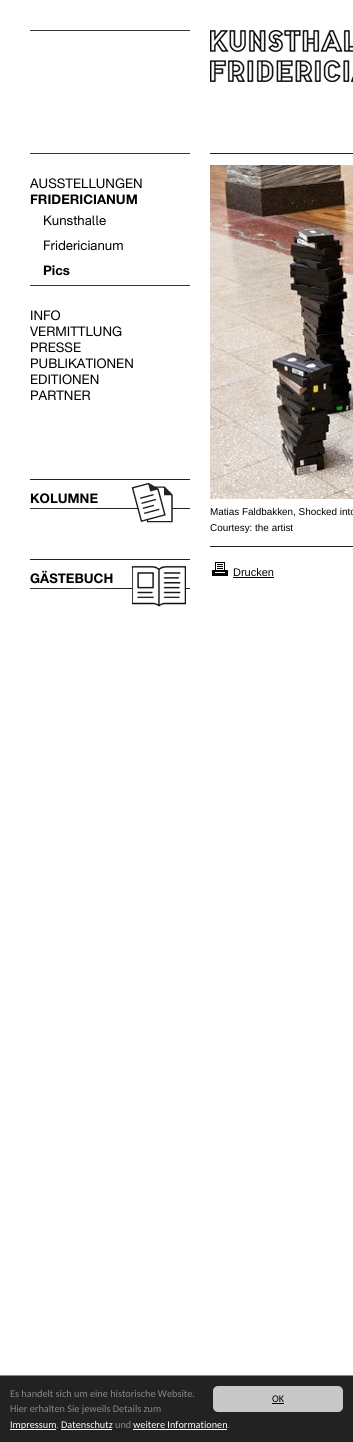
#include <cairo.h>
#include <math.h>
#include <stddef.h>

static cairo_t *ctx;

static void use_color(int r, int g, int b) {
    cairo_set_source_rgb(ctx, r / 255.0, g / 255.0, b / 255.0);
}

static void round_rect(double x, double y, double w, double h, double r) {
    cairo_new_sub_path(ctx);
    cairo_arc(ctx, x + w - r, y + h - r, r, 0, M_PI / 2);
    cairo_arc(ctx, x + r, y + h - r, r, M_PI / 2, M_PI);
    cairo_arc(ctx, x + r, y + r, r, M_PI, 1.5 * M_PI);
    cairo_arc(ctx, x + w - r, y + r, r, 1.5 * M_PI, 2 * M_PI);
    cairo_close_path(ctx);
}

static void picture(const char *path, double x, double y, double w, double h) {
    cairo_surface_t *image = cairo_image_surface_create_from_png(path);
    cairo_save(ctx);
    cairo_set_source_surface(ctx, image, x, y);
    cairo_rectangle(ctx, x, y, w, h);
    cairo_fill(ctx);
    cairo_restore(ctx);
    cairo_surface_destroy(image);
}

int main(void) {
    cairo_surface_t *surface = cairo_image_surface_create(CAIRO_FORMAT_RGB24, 353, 1442);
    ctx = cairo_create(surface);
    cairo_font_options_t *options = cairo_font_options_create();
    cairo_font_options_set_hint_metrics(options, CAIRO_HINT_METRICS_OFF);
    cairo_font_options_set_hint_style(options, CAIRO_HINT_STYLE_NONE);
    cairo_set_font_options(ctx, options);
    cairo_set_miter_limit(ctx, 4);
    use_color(255, 255, 255);
    cairo_paint(ctx);
    use_color(51, 51, 51);
    cairo_rectangle(ctx, 30, 30, 160, 1);
    cairo_fill(ctx);
    picture("img1.png", 210, 30, 143, 52);
    cairo_rectangle(ctx, 30, 153, 160, 1);
    cairo_fill(ctx);
    cairo_select_font_face(ctx, "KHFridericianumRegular", CAIRO_FONT_SLANT_NORMAL, CAIRO_FONT_WEIGHT_NORMAL);
    cairo_set_font_size(ctx, 13.25);
    use_color(0, 0, 0);
    cairo_move_to(ctx, 30, 188);
    cairo_show_text(ctx, "AUSSTELLUNGEN");
    cairo_select_font_face(ctx, "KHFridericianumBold", CAIRO_FONT_SLANT_NORMAL, CAIRO_FONT_WEIGHT_BOLD);
    cairo_move_to(ctx, 30, 204);
    cairo_show_text(ctx, "FRIDERICIANUM");
    cairo_select_font_face(ctx, "KHFridericianumRegular", CAIRO_FONT_SLANT_NORMAL, CAIRO_FONT_WEIGHT_NORMAL);
    cairo_move_to(ctx, 43, 225);
    cairo_show_text(ctx, "Kunsthalle");
    cairo_move_to(ctx, 43, 250);
    cairo_show_text(ctx, "Fridericianum");
    cairo_select_font_face(ctx, "KHFridericianumBold", CAIRO_FONT_SLANT_NORMAL, CAIRO_FONT_WEIGHT_BOLD);
    cairo_move_to(ctx, 43, 275);
    cairo_show_text(ctx, "Pics");
    use_color(51, 51, 51);
    cairo_rectangle(ctx, 30, 285, 160, 1);
    cairo_fill(ctx);
    cairo_select_font_face(ctx, "KHFridericianumRegular", CAIRO_FONT_SLANT_NORMAL, CAIRO_FONT_WEIGHT_NORMAL);
    use_color(0, 0, 0);
    cairo_move_to(ctx, 30, 320);
    cairo_show_text(ctx, "INFO");
    cairo_move_to(ctx, 30, 336);
    cairo_show_text(ctx, "VERMITTLUNG");
    cairo_move_to(ctx, 30, 352);
    cairo_show_text(ctx, "PRESSE");
    cairo_move_to(ctx, 30, 368);
    cairo_show_text(ctx, "PUBLIKATIONEN");
    cairo_move_to(ctx, 30, 384);
    cairo_show_text(ctx, "EDITIONEN");
    cairo_move_to(ctx, 30, 400);
    cairo_show_text(ctx, "PARTNER");
    picture("img2.png", 30, 479, 160, 44);
    cairo_select_font_face(ctx, "KHFridericianumBold", CAIRO_FONT_SLANT_NORMAL, CAIRO_FONT_WEIGHT_BOLD);
    cairo_move_to(ctx, 30, 503);
    cairo_show_text(ctx, "KOLUMNE");
    picture("img3.png", 30, 559, 160, 48);
    cairo_move_to(ctx, 30, 583);
    cairo_show_text(ctx, "GÄSTEBUCH");
    use_color(35, 31, 32);
    cairo_rectangle(ctx, 210, 153, 143, 1);
    cairo_fill(ctx);
    picture("img4.png", 210, 165, 143, 334);
    cairo_select_font_face(ctx, "Liberation Sans", CAIRO_FONT_SLANT_NORMAL, CAIRO_FONT_WEIGHT_NORMAL);
    cairo_set_font_size(ctx, 9.9);
    use_color(0, 0, 0);
    cairo_move_to(ctx, 210, 515);
    cairo_show_text(ctx, "Matias Faldbakken, Shocked into");
    cairo_move_to(ctx, 210, 531);
    cairo_show_text(ctx, "Courtesy: the artist");
    use_color(35, 31, 32);
    cairo_rectangle(ctx, 210, 546, 143, 1);
    cairo_fill(ctx);
    picture("img5.png", 212, 562, 16, 14);
    cairo_set_font_size(ctx, 11);
    use_color(0, 0, 0);
    cairo_move_to(ctx, 233, 576);
    cairo_show_text(ctx, "Drucken");
    cairo_rectangle(ctx, 233, 577, 41, 1);
    cairo_fill(ctx);
    use_color(34, 34, 34);
    cairo_rectangle(ctx, 0, 1376, 353, 66);
    cairo_fill(ctx);
    use_color(136, 136, 136);
    cairo_rectangle(ctx, 0, 1375, 353, 1);
    cairo_fill(ctx);
    cairo_select_font_face(ctx, "Carlito", CAIRO_FONT_SLANT_NORMAL, CAIRO_FONT_WEIGHT_NORMAL);
    cairo_set_font_size(ctx, 10.25);
    cairo_move_to(ctx, 10, 1397);
    cairo_show_text(ctx, "Es handelt sich um eine historische Website.");
    cairo_move_to(ctx, 10, 1412);
    cairo_show_text(ctx, "Hier erhalten Sie jeweils Details zum");
    use_color(255, 255, 255);
    cairo_rectangle(ctx, 10, 1429, 46, 1);
    cairo_fill(ctx);
    cairo_move_to(ctx, 10, 1428);
    cairo_show_text(ctx, "Impressum");
    use_color(136, 136, 136);
    cairo_move_to(ctx, 56, 1428);
    cairo_show_text(ctx, ",");
    use_color(255, 255, 255);
    cairo_move_to(ctx, 61, 1428);
    cairo_show_text(ctx, "Datenschutz");
    cairo_rectangle(ctx, 61, 1429, 51, 1);
    cairo_fill(ctx);
    use_color(136, 136, 136);
    cairo_move_to(ctx, 115, 1428);
    cairo_show_text(ctx, "und");
    use_color(255, 255, 255);
    cairo_move_to(ctx, 133, 1428);
    cairo_show_text(ctx, "weitere Informationen");
    cairo_rectangle(ctx, 133, 1429, 94, 1);
    cairo_fill(ctx);
    use_color(136, 136, 136);
    cairo_move_to(ctx, 227, 1428);
    cairo_show_text(ctx, ".");
    use_color(200, 200, 200);
    round_rect(213, 1386, 130, 26, 5);
    cairo_fill(ctx);
    use_color(0, 0, 0);
    cairo_move_to(ctx, 272, 1402);
    cairo_show_text(ctx, "OK");
    cairo_rectangle(ctx, 272, 1403, 12, 1);
    cairo_fill(ctx);
    cairo_surface_write_to_png(surface, "result.png");
    cairo_font_options_destroy(options);
    cairo_destroy(ctx);
    cairo_surface_destroy(surface);
    return 0;
}
